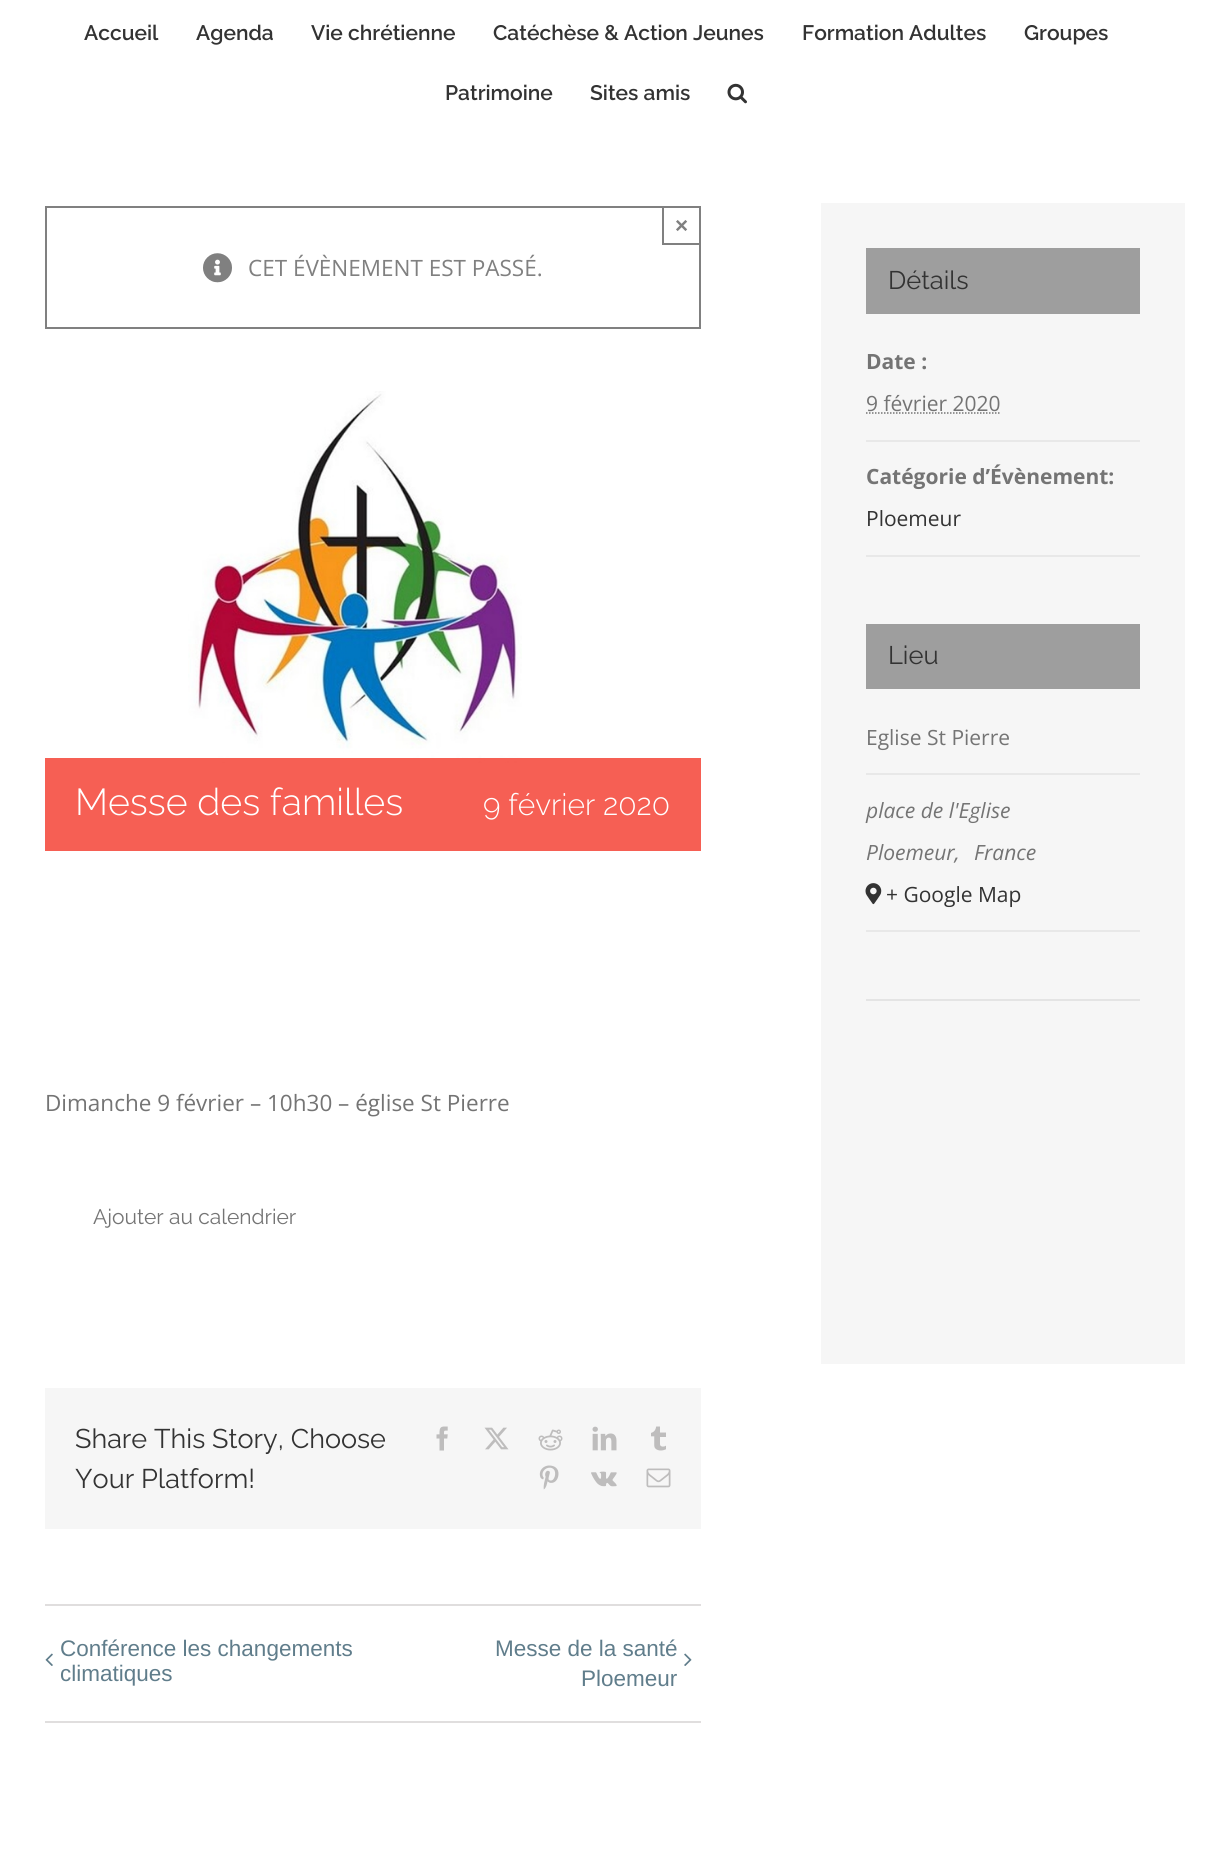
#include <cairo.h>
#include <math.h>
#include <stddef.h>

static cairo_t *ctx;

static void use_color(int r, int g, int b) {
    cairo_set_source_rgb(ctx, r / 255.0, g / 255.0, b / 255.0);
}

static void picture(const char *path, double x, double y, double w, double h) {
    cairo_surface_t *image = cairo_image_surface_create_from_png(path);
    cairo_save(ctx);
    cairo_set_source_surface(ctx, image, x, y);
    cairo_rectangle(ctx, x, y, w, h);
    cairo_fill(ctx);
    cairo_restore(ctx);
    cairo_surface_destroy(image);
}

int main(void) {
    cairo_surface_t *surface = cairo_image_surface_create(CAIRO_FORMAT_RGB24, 1230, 1867);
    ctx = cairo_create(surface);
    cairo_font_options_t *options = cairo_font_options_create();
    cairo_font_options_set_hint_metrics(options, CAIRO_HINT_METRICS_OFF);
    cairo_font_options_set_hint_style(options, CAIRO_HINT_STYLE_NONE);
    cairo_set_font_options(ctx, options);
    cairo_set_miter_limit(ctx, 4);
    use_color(255, 255, 255);
    cairo_paint(ctx);
    cairo_select_font_face(ctx, "Raleway SemiBold", CAIRO_FONT_SLANT_NORMAL, CAIRO_FONT_WEIGHT_NORMAL);
    cairo_set_font_size(ctx, 21);
    use_color(51, 51, 51);
    cairo_move_to(ctx, 84, 40);
    cairo_show_text(ctx, "Accueil");
    cairo_move_to(ctx, 196, 40);
    cairo_show_text(ctx, "Agenda");
    cairo_move_to(ctx, 311, 40);
    cairo_show_text(ctx, "Vie chrétienne");
    cairo_move_to(ctx, 493, 40);
    cairo_show_text(ctx, "Catéchèse & Action Jeunes");
    cairo_move_to(ctx, 802, 40);
    cairo_show_text(ctx, "Formation Adultes");
    cairo_move_to(ctx, 1024, 40);
    cairo_show_text(ctx, "Groupes");
    cairo_move_to(ctx, 445, 100);
    cairo_show_text(ctx, "Patrimoine");
    cairo_move_to(ctx, 590, 100);
    cairo_show_text(ctx, "Sites amis");
    picture("img1.png", 727, 83, 20, 21);
    cairo_rectangle(ctx, 46, 207, 654, 121);
    use_color(128, 128, 128);
    cairo_stroke(ctx);
    cairo_rectangle(ctx, 662, 243, 39, 2);
    cairo_fill(ctx);
    cairo_rectangle(ctx, 662, 206, 2, 39);
    cairo_fill(ctx);
    cairo_select_font_face(ctx, "Liberation Sans", CAIRO_FONT_SLANT_NORMAL, CAIRO_FONT_WEIGHT_BOLD);
    cairo_set_font_size(ctx, 22.5);
    cairo_move_to(ctx, 675, 233);
    cairo_show_text(ctx, "×");
    picture("img2.png", 203, 253, 29, 30);
    cairo_select_font_face(ctx, "Open Sans", CAIRO_FONT_SLANT_NORMAL, CAIRO_FONT_WEIGHT_NORMAL);
    cairo_move_to(ctx, 248, 276);
    cairo_show_text(ctx, "CET ÉVÈNEMENT EST PASSÉ.");
    picture("img3.png", 188, 391, 334, 372);
    cairo_set_source_rgba(ctx, 0.957, 0.263, 0.212, 0.85);
    cairo_rectangle(ctx, 45, 758, 656, 93);
    cairo_fill(ctx);
    cairo_select_font_face(ctx, "Raleway Light", CAIRO_FONT_SLANT_NORMAL, CAIRO_FONT_WEIGHT_NORMAL);
    cairo_set_font_size(ctx, 37.5);
    use_color(255, 255, 255);
    cairo_move_to(ctx, 75, 815);
    cairo_show_text(ctx, "Messe des familles");
    cairo_set_font_size(ctx, 30);
    cairo_move_to(ctx, 483, 815);
    cairo_show_text(ctx, "9 février 2020");
    cairo_select_font_face(ctx, "Open Sans", CAIRO_FONT_SLANT_NORMAL, CAIRO_FONT_WEIGHT_NORMAL);
    cairo_set_font_size(ctx, 22.5);
    use_color(116, 116, 116);
    cairo_move_to(ctx, 45, 1111);
    cairo_show_text(ctx, "Dimanche 9 février – 10h30 – église St Pierre");
    cairo_select_font_face(ctx, "Raleway", CAIRO_FONT_SLANT_NORMAL, CAIRO_FONT_WEIGHT_NORMAL);
    cairo_set_font_size(ctx, 21);
    cairo_move_to(ctx, 93, 1224);
    cairo_show_text(ctx, "Ajouter au calendrier");
    use_color(246, 246, 246);
    cairo_rectangle(ctx, 45, 1388, 656, 141);
    cairo_fill(ctx);
    cairo_set_font_size(ctx, 27);
    use_color(51, 51, 51);
    cairo_move_to(ctx, 75, 1448);
    cairo_show_text(ctx, "Share This Story, Choose");
    cairo_move_to(ctx, 75, 1488);
    cairo_show_text(ctx, "Your Platform!");
    picture("img4.png", 436, 1426, 12, 25);
    picture("img5.png", 484, 1427, 25, 23);
    picture("img6.png", 538, 1429, 25, 22);
    picture("img7.png", 592, 1426, 25, 25);
    picture("img8.png", 651, 1426, 15, 25);
    picture("img9.png", 539, 1465, 20, 25);
    picture("img10.png", 591, 1471, 26, 16);
    picture("img11.png", 646, 1468, 25, 20);
    use_color(224, 222, 222);
    cairo_rectangle(ctx, 45, 1604, 656, 2);
    cairo_fill(ctx);
    cairo_rectangle(ctx, 45, 1721, 656, 2);
    cairo_fill(ctx);
    picture("img12.png", 45, 1653, 8, 13);
    cairo_select_font_face(ctx, "Liberation Sans", CAIRO_FONT_SLANT_NORMAL, CAIRO_FONT_WEIGHT_NORMAL);
    cairo_set_font_size(ctx, 22.5);
    use_color(96, 125, 139);
    cairo_move_to(ctx, 60, 1656);
    cairo_show_text(ctx, "Conférence les changements");
    cairo_move_to(ctx, 60, 1681);
    cairo_show_text(ctx, "climatiques");
    cairo_move_to(ctx, 495, 1656);
    cairo_show_text(ctx, "Messe de la santé");
    picture("img13.png", 684, 1653, 8, 13);
    cairo_move_to(ctx, 581, 1686);
    cairo_show_text(ctx, "Ploemeur");
    use_color(246, 246, 246);
    cairo_rectangle(ctx, 821, 203, 364, 1161);
    cairo_fill(ctx);
    use_color(158, 158, 158);
    cairo_rectangle(ctx, 866, 248, 274, 66);
    cairo_fill(ctx);
    cairo_select_font_face(ctx, "Raleway", CAIRO_FONT_SLANT_NORMAL, CAIRO_FONT_WEIGHT_NORMAL);
    cairo_set_font_size(ctx, 25.5);
    use_color(51, 51, 51);
    cairo_move_to(ctx, 888, 289);
    cairo_show_text(ctx, "Détails");
    cairo_select_font_face(ctx, "Open Sans", CAIRO_FONT_SLANT_NORMAL, CAIRO_FONT_WEIGHT_BOLD);
    cairo_set_font_size(ctx, 21);
    use_color(116, 116, 116);
    cairo_move_to(ctx, 866, 369);
    cairo_show_text(ctx, "Date :");
    use_color(232, 232, 232);
    cairo_rectangle(ctx, 866, 440, 274, 2);
    cairo_fill(ctx);
    cairo_select_font_face(ctx, "Open Sans", CAIRO_FONT_SLANT_NORMAL, CAIRO_FONT_WEIGHT_NORMAL);
    use_color(116, 116, 116);
    cairo_move_to(ctx, 866, 411);
    cairo_show_text(ctx, "9 février 2020");
    cairo_new_path(ctx);
    cairo_move_to(ctx, 866, 413);
    cairo_line_to(ctx, 1000.5, 413);
    cairo_set_line_width(ctx, 1.5);
    cairo_set_dash(ctx, (double[]){1.5, 1.5}, 2, 0);
    cairo_stroke(ctx);
    cairo_select_font_face(ctx, "Open Sans", CAIRO_FONT_SLANT_NORMAL, CAIRO_FONT_WEIGHT_BOLD);
    cairo_move_to(ctx, 866, 484);
    cairo_show_text(ctx, "Catégorie d’Évènement:");
    use_color(232, 232, 232);
    cairo_rectangle(ctx, 866, 555, 274, 2);
    cairo_fill(ctx);
    cairo_select_font_face(ctx, "Open Sans", CAIRO_FONT_SLANT_NORMAL, CAIRO_FONT_WEIGHT_NORMAL);
    use_color(51, 51, 51);
    cairo_move_to(ctx, 866, 526);
    cairo_show_text(ctx, "Ploemeur");
    use_color(158, 158, 158);
    cairo_rectangle(ctx, 866, 624, 274, 65);
    cairo_fill(ctx);
    cairo_select_font_face(ctx, "Raleway", CAIRO_FONT_SLANT_NORMAL, CAIRO_FONT_WEIGHT_NORMAL);
    cairo_set_font_size(ctx, 25.5);
    use_color(51, 51, 51);
    cairo_move_to(ctx, 888, 664);
    cairo_show_text(ctx, "Lieu");
    use_color(232, 232, 232);
    cairo_rectangle(ctx, 866, 773, 274, 2);
    cairo_fill(ctx);
    cairo_select_font_face(ctx, "Open Sans", CAIRO_FONT_SLANT_NORMAL, CAIRO_FONT_WEIGHT_NORMAL);
    cairo_set_font_size(ctx, 21);
    use_color(116, 116, 116);
    cairo_move_to(ctx, 866, 745);
    cairo_show_text(ctx, "Eglise St Pierre");
    use_color(232, 232, 232);
    cairo_rectangle(ctx, 866, 930, 274, 2);
    cairo_fill(ctx);
    cairo_select_font_face(ctx, "Open Sans", CAIRO_FONT_SLANT_ITALIC, CAIRO_FONT_WEIGHT_NORMAL);
    use_color(116, 116, 116);
    cairo_move_to(ctx, 866, 818);
    cairo_show_text(ctx, "place de l'Eglise");
    cairo_move_to(ctx, 866, 860);
    cairo_show_text(ctx, "Ploemeur,");
    cairo_move_to(ctx, 974, 860);
    cairo_show_text(ctx, "France");
    picture("img14.png", 865, 883, 17, 22);
    cairo_select_font_face(ctx, "Open Sans", CAIRO_FONT_SLANT_NORMAL, CAIRO_FONT_WEIGHT_NORMAL);
    use_color(51, 51, 51);
    cairo_move_to(ctx, 886, 902);
    cairo_show_text(ctx, "+ Google Map");
    use_color(228, 228, 228);
    cairo_rectangle(ctx, 866, 999, 274, 2);
    cairo_fill(ctx);
    cairo_surface_write_to_png(surface, "result.png");
    cairo_font_options_destroy(options);
    cairo_destroy(ctx);
    cairo_surface_destroy(surface);
    return 0;
}
